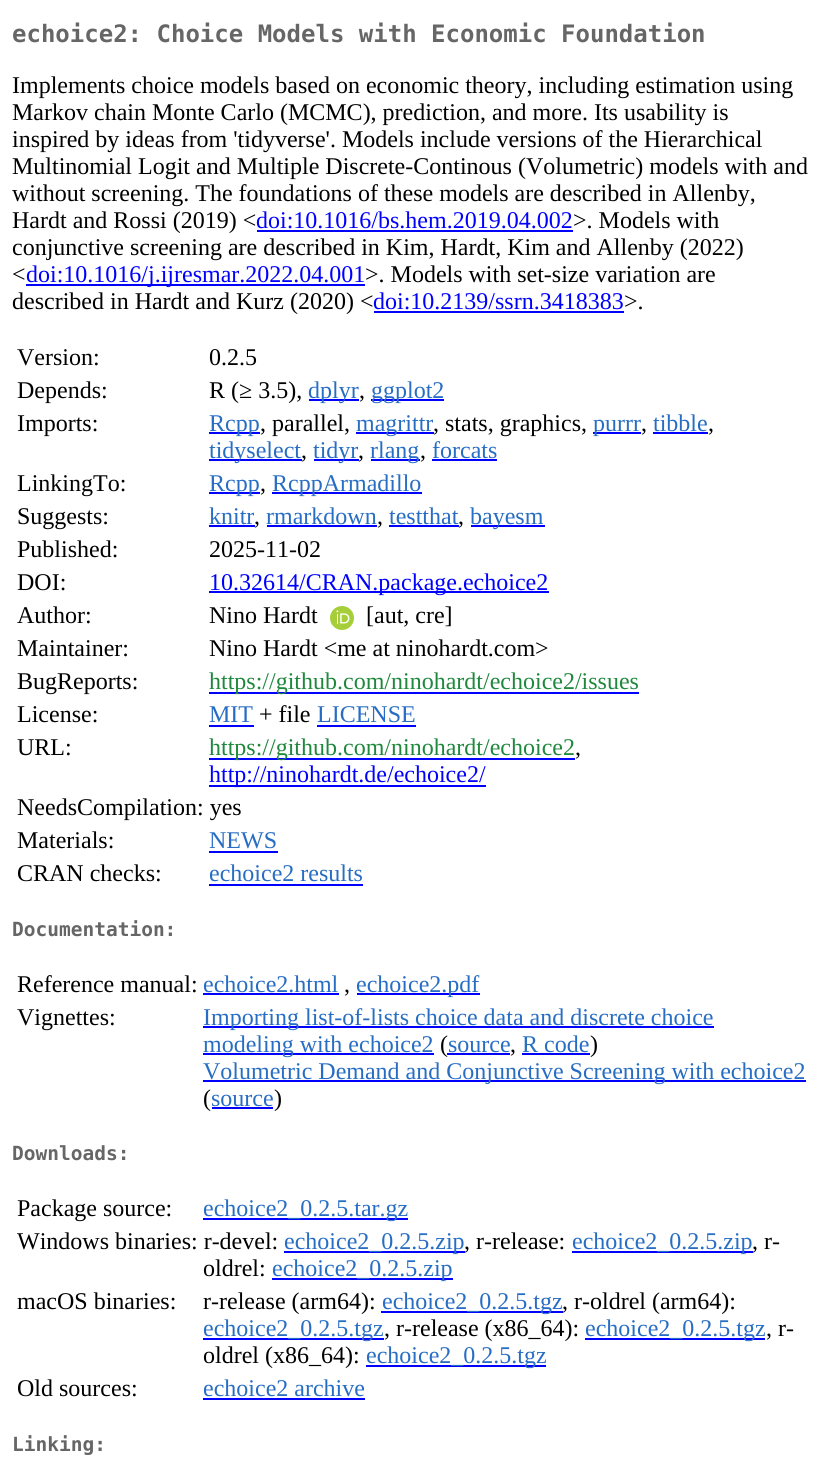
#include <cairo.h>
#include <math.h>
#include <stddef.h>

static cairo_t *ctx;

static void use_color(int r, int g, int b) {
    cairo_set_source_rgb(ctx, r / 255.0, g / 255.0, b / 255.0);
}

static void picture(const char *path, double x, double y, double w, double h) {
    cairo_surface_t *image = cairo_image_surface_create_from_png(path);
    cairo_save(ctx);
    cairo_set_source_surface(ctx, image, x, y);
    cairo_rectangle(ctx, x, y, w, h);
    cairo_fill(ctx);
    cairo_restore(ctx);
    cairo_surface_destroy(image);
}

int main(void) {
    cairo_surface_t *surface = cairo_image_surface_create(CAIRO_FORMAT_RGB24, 823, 1463);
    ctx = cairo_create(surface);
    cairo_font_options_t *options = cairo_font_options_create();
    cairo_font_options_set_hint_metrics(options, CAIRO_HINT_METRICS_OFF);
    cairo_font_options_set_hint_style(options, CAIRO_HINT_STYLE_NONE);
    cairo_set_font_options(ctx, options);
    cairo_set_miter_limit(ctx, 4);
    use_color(255, 255, 255);
    cairo_paint(ctx);
    cairo_select_font_face(ctx, "DejaVu Sans Mono", CAIRO_FONT_SLANT_NORMAL, CAIRO_FONT_WEIGHT_BOLD);
    cairo_set_font_size(ctx, 24);
    use_color(102, 102, 102);
    cairo_move_to(ctx, 12, 42);
    cairo_show_text(ctx, "echoice2: Choice Models with Economic Foundation");
    cairo_select_font_face(ctx, "Liberation Serif", CAIRO_FONT_SLANT_NORMAL, CAIRO_FONT_WEIGHT_NORMAL);
    use_color(0, 0, 0);
    cairo_move_to(ctx, 12, 93);
    cairo_show_text(ctx, "Implements choice models based on economic theory, including estimation using");
    cairo_move_to(ctx, 12, 120);
    cairo_show_text(ctx, "Markov chain Monte Carlo (MCMC), prediction, and more. Its usability is");
    cairo_move_to(ctx, 12, 147);
    cairo_show_text(ctx, "inspired by ideas from 'tidyverse'. Models include versions of the Hierarchical");
    cairo_move_to(ctx, 12, 174);
    cairo_show_text(ctx, "Multinomial Logit and Multiple Discrete-Continous (Volumetric) models with and");
    cairo_move_to(ctx, 12, 201);
    cairo_show_text(ctx, "without screening. The foundations of these models are described in Allenby,");
    cairo_move_to(ctx, 12, 228);
    cairo_show_text(ctx, "Hardt and Rossi (2019) <");
    use_color(0, 0, 255);
    cairo_move_to(ctx, 256, 228);
    cairo_show_text(ctx, "doi:10.1016/bs.hem.2019.04.002");
    cairo_rectangle(ctx, 257, 230, 316, 2);
    cairo_fill(ctx);
    use_color(0, 0, 0);
    cairo_move_to(ctx, 573, 228);
    cairo_show_text(ctx, ">. Models with");
    cairo_move_to(ctx, 12, 255);
    cairo_show_text(ctx, "conjunctive screening are described in Kim, Hardt, Kim and Allenby (2022)");
    cairo_move_to(ctx, 12, 282);
    cairo_show_text(ctx, "<");
    use_color(0, 0, 255);
    cairo_rectangle(ctx, 26, 284, 339, 2);
    cairo_fill(ctx);
    cairo_move_to(ctx, 26, 282);
    cairo_show_text(ctx, "doi:10.1016/j.ijresmar.2022.04.001");
    use_color(0, 0, 0);
    cairo_move_to(ctx, 365, 282);
    cairo_show_text(ctx, ">. Models with set-size variation are");
    cairo_move_to(ctx, 12, 309);
    cairo_show_text(ctx, "described in Hardt and Kurz (2020) <");
    use_color(0, 0, 255);
    cairo_move_to(ctx, 373, 309);
    cairo_show_text(ctx, "doi:10.2139/ssrn.3418383");
    cairo_rectangle(ctx, 374, 311, 250, 2);
    cairo_fill(ctx);
    use_color(0, 0, 0);
    cairo_move_to(ctx, 624, 309);
    cairo_show_text(ctx, ">.");
    cairo_move_to(ctx, 17, 365);
    cairo_show_text(ctx, "Version:");
    cairo_move_to(ctx, 209, 365);
    cairo_show_text(ctx, "0.2.5");
    cairo_move_to(ctx, 17, 398);
    cairo_show_text(ctx, "Depends:");
    cairo_move_to(ctx, 209, 398);
    cairo_show_text(ctx, "R (≥ 3.5),");
    use_color(0, 0, 255);
    cairo_rectangle(ctx, 309, 399, 50, 2);
    cairo_fill(ctx);
    use_color(39, 109, 195);
    cairo_move_to(ctx, 308, 398);
    cairo_show_text(ctx, "dplyr");
    use_color(0, 0, 0);
    cairo_move_to(ctx, 359, 398);
    cairo_show_text(ctx, ",");
    use_color(0, 0, 255);
    cairo_rectangle(ctx, 371, 399, 73, 2);
    cairo_fill(ctx);
    use_color(39, 109, 195);
    cairo_move_to(ctx, 371, 398);
    cairo_show_text(ctx, "ggplot2");
    use_color(0, 0, 0);
    cairo_move_to(ctx, 17, 431);
    cairo_show_text(ctx, "Imports:");
    use_color(0, 0, 255);
    cairo_rectangle(ctx, 209, 432, 51, 2);
    cairo_fill(ctx);
    use_color(39, 109, 195);
    cairo_move_to(ctx, 209, 431);
    cairo_show_text(ctx, "Rcpp");
    use_color(0, 0, 0);
    cairo_move_to(ctx, 260, 431);
    cairo_show_text(ctx, ", parallel,");
    use_color(0, 0, 255);
    cairo_rectangle(ctx, 356, 432, 78, 2);
    cairo_fill(ctx);
    use_color(39, 109, 195);
    cairo_move_to(ctx, 356, 431);
    cairo_show_text(ctx, "magrittr");
    use_color(0, 0, 0);
    cairo_move_to(ctx, 433, 431);
    cairo_show_text(ctx, ", stats, graphics,");
    use_color(0, 0, 255);
    cairo_rectangle(ctx, 593, 432, 48, 2);
    cairo_fill(ctx);
    use_color(39, 109, 195);
    cairo_move_to(ctx, 593, 431);
    cairo_show_text(ctx, "purrr");
    use_color(0, 0, 0);
    cairo_move_to(ctx, 641, 431);
    cairo_show_text(ctx, ",");
    use_color(39, 109, 195);
    cairo_move_to(ctx, 653, 431);
    cairo_show_text(ctx, "tibble");
    use_color(0, 0, 255);
    cairo_rectangle(ctx, 653, 432, 55, 2);
    cairo_fill(ctx);
    use_color(0, 0, 0);
    cairo_move_to(ctx, 708, 431);
    cairo_show_text(ctx, ",");
    use_color(0, 0, 255);
    cairo_rectangle(ctx, 209, 459, 93, 2);
    cairo_fill(ctx);
    use_color(39, 109, 195);
    cairo_move_to(ctx, 209, 458);
    cairo_show_text(ctx, "tidyselect");
    use_color(0, 0, 0);
    cairo_move_to(ctx, 301, 458);
    cairo_show_text(ctx, ",");
    use_color(0, 0, 255);
    cairo_rectangle(ctx, 314, 459, 45, 2);
    cairo_fill(ctx);
    use_color(39, 109, 195);
    cairo_move_to(ctx, 313, 458);
    cairo_show_text(ctx, "tidyr");
    use_color(0, 0, 0);
    cairo_move_to(ctx, 358, 458);
    cairo_show_text(ctx, ",");
    use_color(0, 0, 255);
    cairo_rectangle(ctx, 371, 459, 49, 2);
    cairo_fill(ctx);
    use_color(39, 109, 195);
    cairo_move_to(ctx, 370, 458);
    cairo_show_text(ctx, "rlang");
    use_color(0, 0, 0);
    cairo_move_to(ctx, 420, 458);
    cairo_show_text(ctx, ",");
    use_color(39, 109, 195);
    cairo_move_to(ctx, 432, 458);
    cairo_show_text(ctx, "forcats");
    use_color(0, 0, 255);
    cairo_rectangle(ctx, 432, 459, 65, 2);
    cairo_fill(ctx);
    use_color(0, 0, 0);
    cairo_move_to(ctx, 17, 491);
    cairo_show_text(ctx, "LinkingTo:");
    use_color(0, 0, 255);
    cairo_rectangle(ctx, 209, 492, 51, 2);
    cairo_fill(ctx);
    use_color(39, 109, 195);
    cairo_move_to(ctx, 209, 491);
    cairo_show_text(ctx, "Rcpp");
    use_color(0, 0, 0);
    cairo_move_to(ctx, 260, 491);
    cairo_show_text(ctx, ",");
    use_color(0, 0, 255);
    cairo_rectangle(ctx, 272, 492, 150, 2);
    cairo_fill(ctx);
    use_color(39, 109, 195);
    cairo_move_to(ctx, 272, 491);
    cairo_show_text(ctx, "RcppArmadillo");
    use_color(0, 0, 0);
    cairo_move_to(ctx, 17, 524);
    cairo_show_text(ctx, "Suggests:");
    use_color(39, 109, 195);
    cairo_move_to(ctx, 209, 524);
    cairo_show_text(ctx, "knitr");
    use_color(0, 0, 255);
    cairo_rectangle(ctx, 209, 525, 46, 2);
    cairo_fill(ctx);
    use_color(0, 0, 0);
    cairo_move_to(ctx, 254, 524);
    cairo_show_text(ctx, ",");
    use_color(39, 109, 195);
    cairo_move_to(ctx, 266, 524);
    cairo_show_text(ctx, "rmarkdown");
    use_color(0, 0, 255);
    cairo_rectangle(ctx, 267, 525, 110, 2);
    cairo_fill(ctx);
    use_color(0, 0, 0);
    cairo_move_to(ctx, 377, 524);
    cairo_show_text(ctx, ",");
    use_color(39, 109, 195);
    cairo_move_to(ctx, 389, 524);
    cairo_show_text(ctx, "testthat");
    use_color(0, 0, 255);
    cairo_rectangle(ctx, 389, 525, 70, 2);
    cairo_fill(ctx);
    use_color(0, 0, 0);
    cairo_move_to(ctx, 458, 524);
    cairo_show_text(ctx, ",");
    use_color(0, 0, 255);
    cairo_rectangle(ctx, 471, 525, 74, 2);
    cairo_fill(ctx);
    use_color(39, 109, 195);
    cairo_move_to(ctx, 470, 524);
    cairo_show_text(ctx, "bayesm");
    use_color(0, 0, 0);
    cairo_move_to(ctx, 17, 557);
    cairo_show_text(ctx, "Published:");
    cairo_move_to(ctx, 209, 557);
    cairo_show_text(ctx, "2025-11-02");
    cairo_move_to(ctx, 17, 590);
    cairo_show_text(ctx, "DOI:");
    use_color(0, 0, 255);
    cairo_rectangle(ctx, 209, 591, 340, 2);
    cairo_fill(ctx);
    cairo_move_to(ctx, 209, 590);
    cairo_show_text(ctx, "10.32614/CRAN.package.echoice2");
    use_color(0, 0, 0);
    cairo_move_to(ctx, 17, 623);
    cairo_show_text(ctx, "Author:");
    cairo_move_to(ctx, 209, 623);
    cairo_show_text(ctx, "Nino Hardt");
    picture("img1.png", 330, 606, 24, 24);
    cairo_move_to(ctx, 366, 623);
    cairo_show_text(ctx, "[aut, cre]");
    cairo_move_to(ctx, 17, 656);
    cairo_show_text(ctx, "Maintainer:");
    cairo_move_to(ctx, 209, 656);
    cairo_show_text(ctx, "Nino Hardt <me at ninohardt.com>");
    cairo_move_to(ctx, 17, 689);
    cairo_show_text(ctx, "BugReports:");
    use_color(0, 0, 255);
    cairo_rectangle(ctx, 209, 692, 430, 2);
    cairo_fill(ctx);
    use_color(31, 136, 61);
    cairo_move_to(ctx, 209, 689);
    cairo_show_text(ctx, "https://github.com/ninohardt/echoice2/issues");
    use_color(0, 0, 0);
    cairo_move_to(ctx, 17, 722);
    cairo_show_text(ctx, "License:");
    use_color(39, 109, 195);
    cairo_move_to(ctx, 209, 722);
    cairo_show_text(ctx, "MIT");
    use_color(0, 0, 255);
    cairo_rectangle(ctx, 209, 725, 45, 2);
    cairo_fill(ctx);
    use_color(0, 0, 0);
    cairo_move_to(ctx, 259, 722);
    cairo_show_text(ctx, "+ file");
    use_color(39, 109, 195);
    cairo_move_to(ctx, 317, 722);
    cairo_show_text(ctx, "LICENSE");
    use_color(0, 0, 255);
    cairo_rectangle(ctx, 317, 725, 99, 2);
    cairo_fill(ctx);
    use_color(0, 0, 0);
    cairo_move_to(ctx, 17, 755);
    cairo_show_text(ctx, "URL:");
    use_color(0, 0, 255);
    cairo_rectangle(ctx, 209, 758, 366, 2);
    cairo_fill(ctx);
    use_color(31, 136, 61);
    cairo_move_to(ctx, 209, 755);
    cairo_show_text(ctx, "https://github.com/ninohardt/echoice2");
    use_color(0, 0, 0);
    cairo_move_to(ctx, 575, 755);
    cairo_show_text(ctx, ",");
    use_color(0, 0, 255);
    cairo_rectangle(ctx, 209, 785, 277, 2);
    cairo_fill(ctx);
    cairo_move_to(ctx, 209, 782);
    cairo_show_text(ctx, "http://ninohardt.de/echoice2/");
    use_color(0, 0, 0);
    cairo_move_to(ctx, 17, 815);
    cairo_show_text(ctx, "NeedsCompilation: yes");
    cairo_move_to(ctx, 17, 848);
    cairo_show_text(ctx, "Materials:");
    use_color(39, 109, 195);
    cairo_move_to(ctx, 209, 848);
    cairo_show_text(ctx, "NEWS");
    use_color(0, 0, 255);
    cairo_rectangle(ctx, 209, 851, 69, 2);
    cairo_fill(ctx);
    use_color(0, 0, 0);
    cairo_move_to(ctx, 17, 881);
    cairo_show_text(ctx, "CRAN checks:");
    use_color(39, 109, 195);
    cairo_move_to(ctx, 209, 881);
    cairo_show_text(ctx, "echoice2 results");
    use_color(0, 0, 255);
    cairo_rectangle(ctx, 209, 884, 154, 2);
    cairo_fill(ctx);
    cairo_select_font_face(ctx, "DejaVu Sans Mono", CAIRO_FONT_SLANT_NORMAL, CAIRO_FONT_WEIGHT_BOLD);
    cairo_set_font_size(ctx, 19.5);
    use_color(102, 102, 102);
    cairo_move_to(ctx, 12, 936);
    cairo_show_text(ctx, "Documentation:");
    cairo_select_font_face(ctx, "Liberation Serif", CAIRO_FONT_SLANT_NORMAL, CAIRO_FONT_WEIGHT_NORMAL);
    cairo_set_font_size(ctx, 24);
    use_color(0, 0, 0);
    cairo_move_to(ctx, 17, 992);
    cairo_show_text(ctx, "Reference manual:");
    use_color(39, 109, 195);
    cairo_move_to(ctx, 203, 992);
    cairo_show_text(ctx, "echoice2.html");
    use_color(0, 0, 255);
    cairo_rectangle(ctx, 203, 993, 136, 2);
    cairo_fill(ctx);
    use_color(0, 0, 0);
    cairo_move_to(ctx, 344, 992);
    cairo_show_text(ctx, ",");
    use_color(0, 0, 255);
    cairo_rectangle(ctx, 357, 993, 123, 2);
    cairo_fill(ctx);
    use_color(39, 109, 195);
    cairo_move_to(ctx, 356, 992);
    cairo_show_text(ctx, "echoice2.pdf");
    use_color(0, 0, 0);
    cairo_move_to(ctx, 17, 1025);
    cairo_show_text(ctx, "Vignettes:");
    use_color(0, 0, 255);
    cairo_rectangle(ctx, 203, 1026, 511, 2);
    cairo_fill(ctx);
    use_color(39, 109, 195);
    cairo_move_to(ctx, 203, 1025);
    cairo_show_text(ctx, "Importing list-of-lists choice data and discrete choice");
    use_color(0, 0, 255);
    cairo_rectangle(ctx, 203, 1053, 231, 2);
    cairo_fill(ctx);
    use_color(39, 109, 195);
    cairo_move_to(ctx, 203, 1052);
    cairo_show_text(ctx, "modeling with echoice2");
    use_color(0, 0, 0);
    cairo_move_to(ctx, 440, 1052);
    cairo_show_text(ctx, "(");
    use_color(39, 109, 195);
    cairo_move_to(ctx, 448, 1052);
    cairo_show_text(ctx, "source");
    use_color(0, 0, 255);
    cairo_rectangle(ctx, 447, 1053, 63, 2);
    cairo_fill(ctx);
    use_color(0, 0, 0);
    cairo_move_to(ctx, 510, 1052);
    cairo_show_text(ctx, ",");
    use_color(39, 109, 195);
    cairo_move_to(ctx, 522, 1052);
    cairo_show_text(ctx, "R code");
    use_color(0, 0, 255);
    cairo_rectangle(ctx, 522, 1053, 68, 2);
    cairo_fill(ctx);
    use_color(0, 0, 0);
    cairo_move_to(ctx, 590, 1052);
    cairo_show_text(ctx, ")");
    use_color(0, 0, 255);
    cairo_rectangle(ctx, 203, 1080, 603, 2);
    cairo_fill(ctx);
    use_color(39, 109, 195);
    cairo_move_to(ctx, 203, 1079);
    cairo_show_text(ctx, "Volumetric Demand and Conjunctive Screening with echoice2");
    use_color(0, 0, 0);
    cairo_move_to(ctx, 203, 1106);
    cairo_show_text(ctx, "(");
    use_color(39, 109, 195);
    cairo_move_to(ctx, 211, 1106);
    cairo_show_text(ctx, "source");
    use_color(0, 0, 255);
    cairo_rectangle(ctx, 212, 1107, 61, 2);
    cairo_fill(ctx);
    use_color(0, 0, 0);
    cairo_move_to(ctx, 274, 1106);
    cairo_show_text(ctx, ")");
    cairo_select_font_face(ctx, "DejaVu Sans Mono", CAIRO_FONT_SLANT_NORMAL, CAIRO_FONT_WEIGHT_BOLD);
    cairo_set_font_size(ctx, 19.5);
    use_color(102, 102, 102);
    cairo_move_to(ctx, 12, 1160);
    cairo_show_text(ctx, "Downloads:");
    cairo_select_font_face(ctx, "Liberation Serif", CAIRO_FONT_SLANT_NORMAL, CAIRO_FONT_WEIGHT_NORMAL);
    cairo_set_font_size(ctx, 24);
    use_color(0, 0, 0);
    cairo_move_to(ctx, 17, 1216);
    cairo_show_text(ctx, "Package source:");
    use_color(0, 0, 255);
    cairo_rectangle(ctx, 203, 1218, 205, 2);
    cairo_fill(ctx);
    use_color(39, 109, 195);
    cairo_move_to(ctx, 203, 1216);
    cairo_show_text(ctx, "echoice2_0.2.5.tar.gz");
    use_color(0, 0, 0);
    cairo_move_to(ctx, 17, 1249);
    cairo_show_text(ctx, "Windows binaries: r-devel:");
    use_color(0, 0, 255);
    cairo_rectangle(ctx, 284, 1251, 181, 2);
    cairo_fill(ctx);
    use_color(39, 109, 195);
    cairo_move_to(ctx, 284, 1249);
    cairo_show_text(ctx, "echoice2_0.2.5.zip");
    use_color(0, 0, 0);
    cairo_move_to(ctx, 464, 1249);
    cairo_show_text(ctx, ", r-release:");
    use_color(0, 0, 255);
    cairo_rectangle(ctx, 572, 1251, 181, 2);
    cairo_fill(ctx);
    use_color(39, 109, 195);
    cairo_move_to(ctx, 572, 1249);
    cairo_show_text(ctx, "echoice2_0.2.5.zip");
    use_color(0, 0, 0);
    cairo_move_to(ctx, 752, 1249);
    cairo_show_text(ctx, ", r-");
    cairo_move_to(ctx, 203, 1276);
    cairo_show_text(ctx, "oldrel:");
    use_color(0, 0, 255);
    cairo_rectangle(ctx, 272, 1278, 181, 2);
    cairo_fill(ctx);
    use_color(39, 109, 195);
    cairo_move_to(ctx, 272, 1276);
    cairo_show_text(ctx, "echoice2_0.2.5.zip");
    use_color(0, 0, 0);
    cairo_move_to(ctx, 17, 1309);
    cairo_show_text(ctx, "macOS binaries:");
    cairo_move_to(ctx, 203, 1309);
    cairo_show_text(ctx, "r-release (arm64):");
    use_color(0, 0, 255);
    cairo_rectangle(ctx, 381, 1311, 182, 2);
    cairo_fill(ctx);
    use_color(39, 109, 195);
    cairo_move_to(ctx, 382, 1309);
    cairo_show_text(ctx, "echoice2_0.2.5.tgz");
    use_color(0, 0, 0);
    cairo_move_to(ctx, 562, 1309);
    cairo_show_text(ctx, ", r-oldrel (arm64):");
    use_color(0, 0, 255);
    cairo_rectangle(ctx, 203, 1338, 181, 2);
    cairo_fill(ctx);
    use_color(39, 109, 195);
    cairo_move_to(ctx, 203, 1336);
    cairo_show_text(ctx, "echoice2_0.2.5.tgz");
    use_color(0, 0, 0);
    cairo_move_to(ctx, 384, 1336);
    cairo_show_text(ctx, ", r-release (x86_64):");
    use_color(0, 0, 255);
    cairo_rectangle(ctx, 585, 1338, 180, 2);
    cairo_fill(ctx);
    use_color(39, 109, 195);
    cairo_move_to(ctx, 585, 1336);
    cairo_show_text(ctx, "echoice2_0.2.5.tgz");
    use_color(0, 0, 0);
    cairo_move_to(ctx, 766, 1336);
    cairo_show_text(ctx, ", r-");
    cairo_move_to(ctx, 203, 1363);
    cairo_show_text(ctx, "oldrel (x86_64):");
    use_color(0, 0, 255);
    cairo_rectangle(ctx, 366, 1365, 180, 2);
    cairo_fill(ctx);
    use_color(39, 109, 195);
    cairo_move_to(ctx, 366, 1363);
    cairo_show_text(ctx, "echoice2_0.2.5.tgz");
    use_color(0, 0, 0);
    cairo_move_to(ctx, 17, 1396);
    cairo_show_text(ctx, "Old sources:");
    use_color(39, 109, 195);
    cairo_move_to(ctx, 203, 1396);
    cairo_show_text(ctx, "echoice2 archive");
    use_color(0, 0, 255);
    cairo_rectangle(ctx, 203, 1398, 162, 2);
    cairo_fill(ctx);
    cairo_select_font_face(ctx, "DejaVu Sans Mono", CAIRO_FONT_SLANT_NORMAL, CAIRO_FONT_WEIGHT_BOLD);
    cairo_set_font_size(ctx, 19.5);
    use_color(102, 102, 102);
    cairo_move_to(ctx, 12, 1451);
    cairo_show_text(ctx, "Linking:");
    cairo_surface_write_to_png(surface, "result.png");
    cairo_font_options_destroy(options);
    cairo_destroy(ctx);
    cairo_surface_destroy(surface);
    return 0;
}
